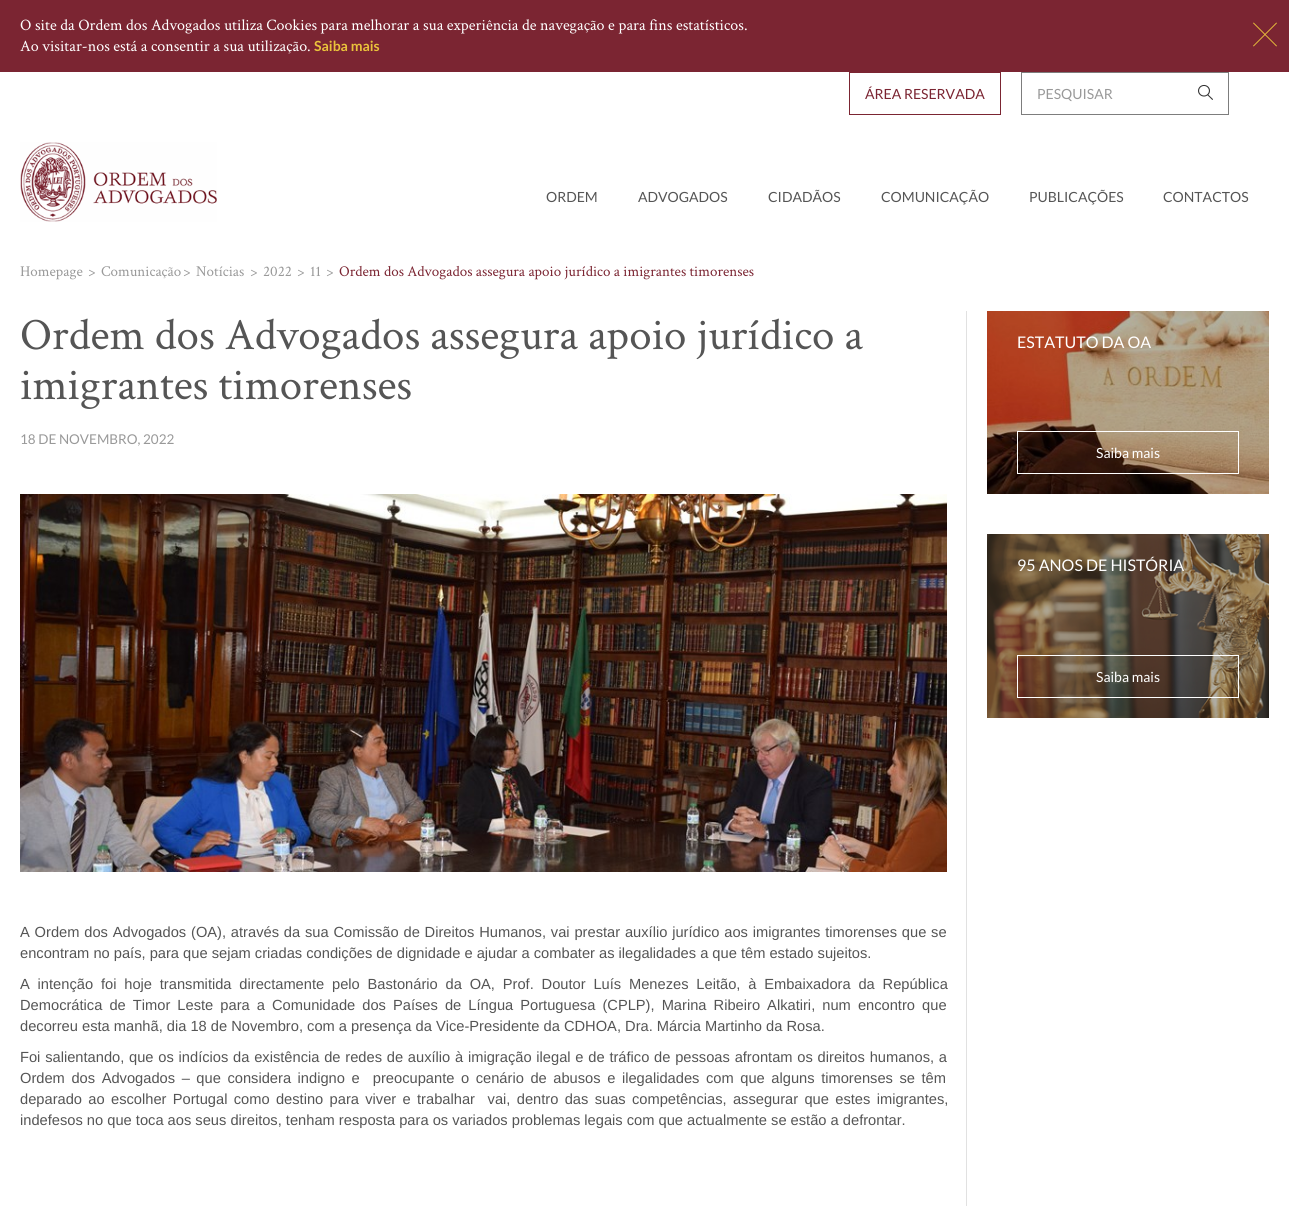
#include <cairo.h>
#include <math.h>
#include <stddef.h>

static cairo_t *ctx;

static void use_color(int r, int g, int b) {
    cairo_set_source_rgb(ctx, r / 255.0, g / 255.0, b / 255.0);
}

static void spaced_text(double x, double y, const char *s, double letter, double word) {
    cairo_move_to(ctx, x, y);
    while (*s) {
        char ch[5] = {0};
        int n = 0;
        do ch[n++] = *s++; while ((*s & 0xC0) == 0x80);
        cairo_show_text(ctx, ch);
        cairo_rel_move_to(ctx, letter + word * (*ch == ' '), 0);
    }
}

static void picture(const char *path, double x, double y, double w, double h) {
    cairo_surface_t *image = cairo_image_surface_create_from_png(path);
    cairo_save(ctx);
    cairo_set_source_surface(ctx, image, x, y);
    cairo_rectangle(ctx, x, y, w, h);
    cairo_fill(ctx);
    cairo_restore(ctx);
    cairo_surface_destroy(image);
}

int main(void) {
    cairo_surface_t *surface = cairo_image_surface_create(CAIRO_FORMAT_RGB24, 1289, 1206);
    ctx = cairo_create(surface);
    cairo_font_options_t *options = cairo_font_options_create();
    cairo_font_options_set_hint_metrics(options, CAIRO_HINT_METRICS_OFF);
    cairo_font_options_set_hint_style(options, CAIRO_HINT_STYLE_NONE);
    cairo_set_font_options(ctx, options);
    cairo_set_miter_limit(ctx, 4);
    use_color(255, 255, 255);
    cairo_paint(ctx);
    use_color(123, 37, 50);
    cairo_rectangle(ctx, 0, 0, 1289, 72);
    cairo_fill(ctx);
    cairo_select_font_face(ctx, "Crimson Text", CAIRO_FONT_SLANT_NORMAL, CAIRO_FONT_WEIGHT_NORMAL);
    cairo_set_font_size(ctx, 16);
    use_color(255, 255, 255);
    cairo_move_to(ctx, 20, 30);
    cairo_show_text(ctx, "O site da Ordem dos Advogados utiliza Cookies para melhorar a sua experiência de navegação e para fins estatísticos.");
    picture("img1.png", 1253, 22, 24, 25);
    cairo_move_to(ctx, 20, 51);
    cairo_show_text(ctx, "Ao visitar-nos está a consentir a sua utilização.");
    cairo_select_font_face(ctx, "Lato", CAIRO_FONT_SLANT_NORMAL, CAIRO_FONT_WEIGHT_BOLD);
    cairo_set_font_size(ctx, 14);
    use_color(234, 195, 59);
    cairo_move_to(ctx, 314, 51);
    cairo_show_text(ctx, "Saiba mais");
    picture("img2.png", 20, 142, 197, 80);
    cairo_rectangle(ctx, 849.5, 72.5, 151, 42);
    use_color(123, 37, 50);
    cairo_set_line_width(ctx, 1);
    cairo_stroke(ctx);
    cairo_select_font_face(ctx, "Lato", CAIRO_FONT_SLANT_NORMAL, CAIRO_FONT_WEIGHT_NORMAL);
    cairo_move_to(ctx, 865, 99);
    cairo_show_text(ctx, "ÁREA RESERVADA");
    cairo_rectangle(ctx, 1021.5, 72.5, 207, 42);
    use_color(125, 125, 125);
    cairo_stroke(ctx);
    use_color(153, 153, 153);
    cairo_move_to(ctx, 1037, 99);
    cairo_show_text(ctx, "PESQUISAR");
    picture("img3.png", 1198, 84, 15, 16);
    use_color(85, 85, 85);
    cairo_move_to(ctx, 546, 202);
    cairo_show_text(ctx, "ORDEM");
    cairo_move_to(ctx, 638, 202);
    cairo_show_text(ctx, "ADVOGADOS");
    cairo_move_to(ctx, 768, 202);
    cairo_show_text(ctx, "CIDADÃOS");
    cairo_move_to(ctx, 881, 202);
    cairo_show_text(ctx, "COMUNICAÇÃO");
    cairo_move_to(ctx, 1029, 202);
    cairo_show_text(ctx, "PUBLICAÇÕES");
    cairo_move_to(ctx, 1163, 202);
    cairo_show_text(ctx, "CONTACTOS");
    cairo_select_font_face(ctx, "Crimson Text", CAIRO_FONT_SLANT_NORMAL, CAIRO_FONT_WEIGHT_NORMAL);
    cairo_set_font_size(ctx, 15);
    use_color(153, 153, 153);
    cairo_move_to(ctx, 20, 276);
    cairo_show_text(ctx, "Homepage");
    cairo_move_to(ctx, 88, 276);
    cairo_show_text(ctx, ">");
    cairo_move_to(ctx, 101, 276);
    cairo_show_text(ctx, "Comunicação");
    cairo_move_to(ctx, 183, 276);
    cairo_show_text(ctx, ">");
    cairo_move_to(ctx, 196, 276);
    cairo_show_text(ctx, "Notícias");
    cairo_move_to(ctx, 250, 276);
    cairo_show_text(ctx, ">");
    cairo_move_to(ctx, 263, 276);
    cairo_show_text(ctx, "2022");
    cairo_move_to(ctx, 297, 276);
    cairo_show_text(ctx, ">");
    cairo_move_to(ctx, 310, 276);
    cairo_show_text(ctx, "11");
    cairo_move_to(ctx, 326, 276);
    cairo_show_text(ctx, ">");
    use_color(123, 37, 50);
    cairo_move_to(ctx, 339, 276);
    cairo_show_text(ctx, "Ordem dos Advogados assegura apoio jurídico a imigrantes timorenses");
    cairo_set_font_size(ctx, 45);
    use_color(85, 85, 85);
    cairo_move_to(ctx, 20, 349);
    cairo_show_text(ctx, "Ordem dos Advogados assegura apoio jurídico a");
    cairo_move_to(ctx, 20, 399);
    cairo_show_text(ctx, "imigrantes timorenses");
    cairo_select_font_face(ctx, "Lato", CAIRO_FONT_SLANT_NORMAL, CAIRO_FONT_WEIGHT_NORMAL);
    cairo_set_font_size(ctx, 13.5);
    use_color(153, 153, 153);
    cairo_move_to(ctx, 20, 444);
    cairo_show_text(ctx, "18 DE NOVEMBRO, 2022");
    picture("img4.png", 20, 494, 927, 378);
    cairo_select_font_face(ctx, "Liberation Sans", CAIRO_FONT_SLANT_NORMAL, CAIRO_FONT_WEIGHT_NORMAL);
    cairo_set_font_size(ctx, 14.67);
    use_color(85, 85, 85);
    spaced_text(20, 937, "A Ordem dos Advogados (OA), através da sua Comissão de Direitos Humanos, vai prestar auxílio jurídico aos imigrantes timorenses que se", 0, 0.75);
    cairo_move_to(ctx, 20, 958);
    cairo_show_text(ctx, "encontram no país, para que sejam criadas condições de dignidade e ajudar a combater as ilegalidades a que têm estado sujeitos.");
    spaced_text(20, 989, "A intenção foi hoje transmitida directamente pelo Bastonário da OA, Prof. Doutor Luís Menezes Leitão, à Embaixadora da República", 0, 3.75);
    spaced_text(20, 1010, "Democrática de Timor Leste para a Comunidade dos Países de Língua Portuguesa (CPLP), Marina Ribeiro Alkatiri, num encontro que", 0, 3);
    cairo_move_to(ctx, 20, 1031);
    cairo_show_text(ctx, "decorreu esta manhã, dia 18 de Novembro, com a presença da Vice-Presidente da CDHOA, Dra. Márcia Martinho da Rosa.");
    spaced_text(20, 1062, "Foi salientando, que os indícios da existência de redes de auxílio à imigração ilegal e de tráfico de pessoas afrontam os direitos humanos, a", 0, 0.7);
    spaced_text(20, 1083, "Ordem dos Advogados – que considera indigno e  preocupante o cenário de abusos e ilegalidades com que alguns timorenses se têm", 0, 2.5);
    spaced_text(20, 1104, "deparado ao escolher Portugal como destino para viver e trabalhar  vai, dentro das suas competências, assegurar que estes imigrantes,", 0, 2.25);
    cairo_move_to(ctx, 20, 1125);
    cairo_show_text(ctx, "indefesos no que toca aos seus direitos, tenham resposta para os variados problemas legais com que actualmente se estão a defrontar.");
    use_color(225, 225, 225);
    cairo_rectangle(ctx, 966, 311, 1, 895);
    cairo_fill(ctx);
    picture("img5.png", 987, 311, 282, 183);
    cairo_select_font_face(ctx, "Lato", CAIRO_FONT_SLANT_NORMAL, CAIRO_FONT_WEIGHT_NORMAL);
    cairo_set_font_size(ctx, 16);
    use_color(255, 255, 255);
    cairo_move_to(ctx, 1017, 348);
    cairo_show_text(ctx, "ESTATUTO DA OA");
    cairo_rectangle(ctx, 1017.5, 431.5, 221, 42);
    cairo_stroke(ctx);
    cairo_set_font_size(ctx, 14);
    cairo_move_to(ctx, 1096, 458);
    cairo_show_text(ctx, "Saiba mais");
    picture("img6.png", 987, 534, 282, 184);
    cairo_set_font_size(ctx, 16);
    cairo_move_to(ctx, 1017, 571);
    cairo_show_text(ctx, "95 ANOS DE HISTÓRIA");
    cairo_rectangle(ctx, 1017.5, 655.5, 221, 42);
    cairo_stroke(ctx);
    cairo_set_font_size(ctx, 14);
    cairo_move_to(ctx, 1096, 682);
    cairo_show_text(ctx, "Saiba mais");
    cairo_surface_write_to_png(surface, "result.png");
    cairo_font_options_destroy(options);
    cairo_destroy(ctx);
    cairo_surface_destroy(surface);
    return 0;
}
